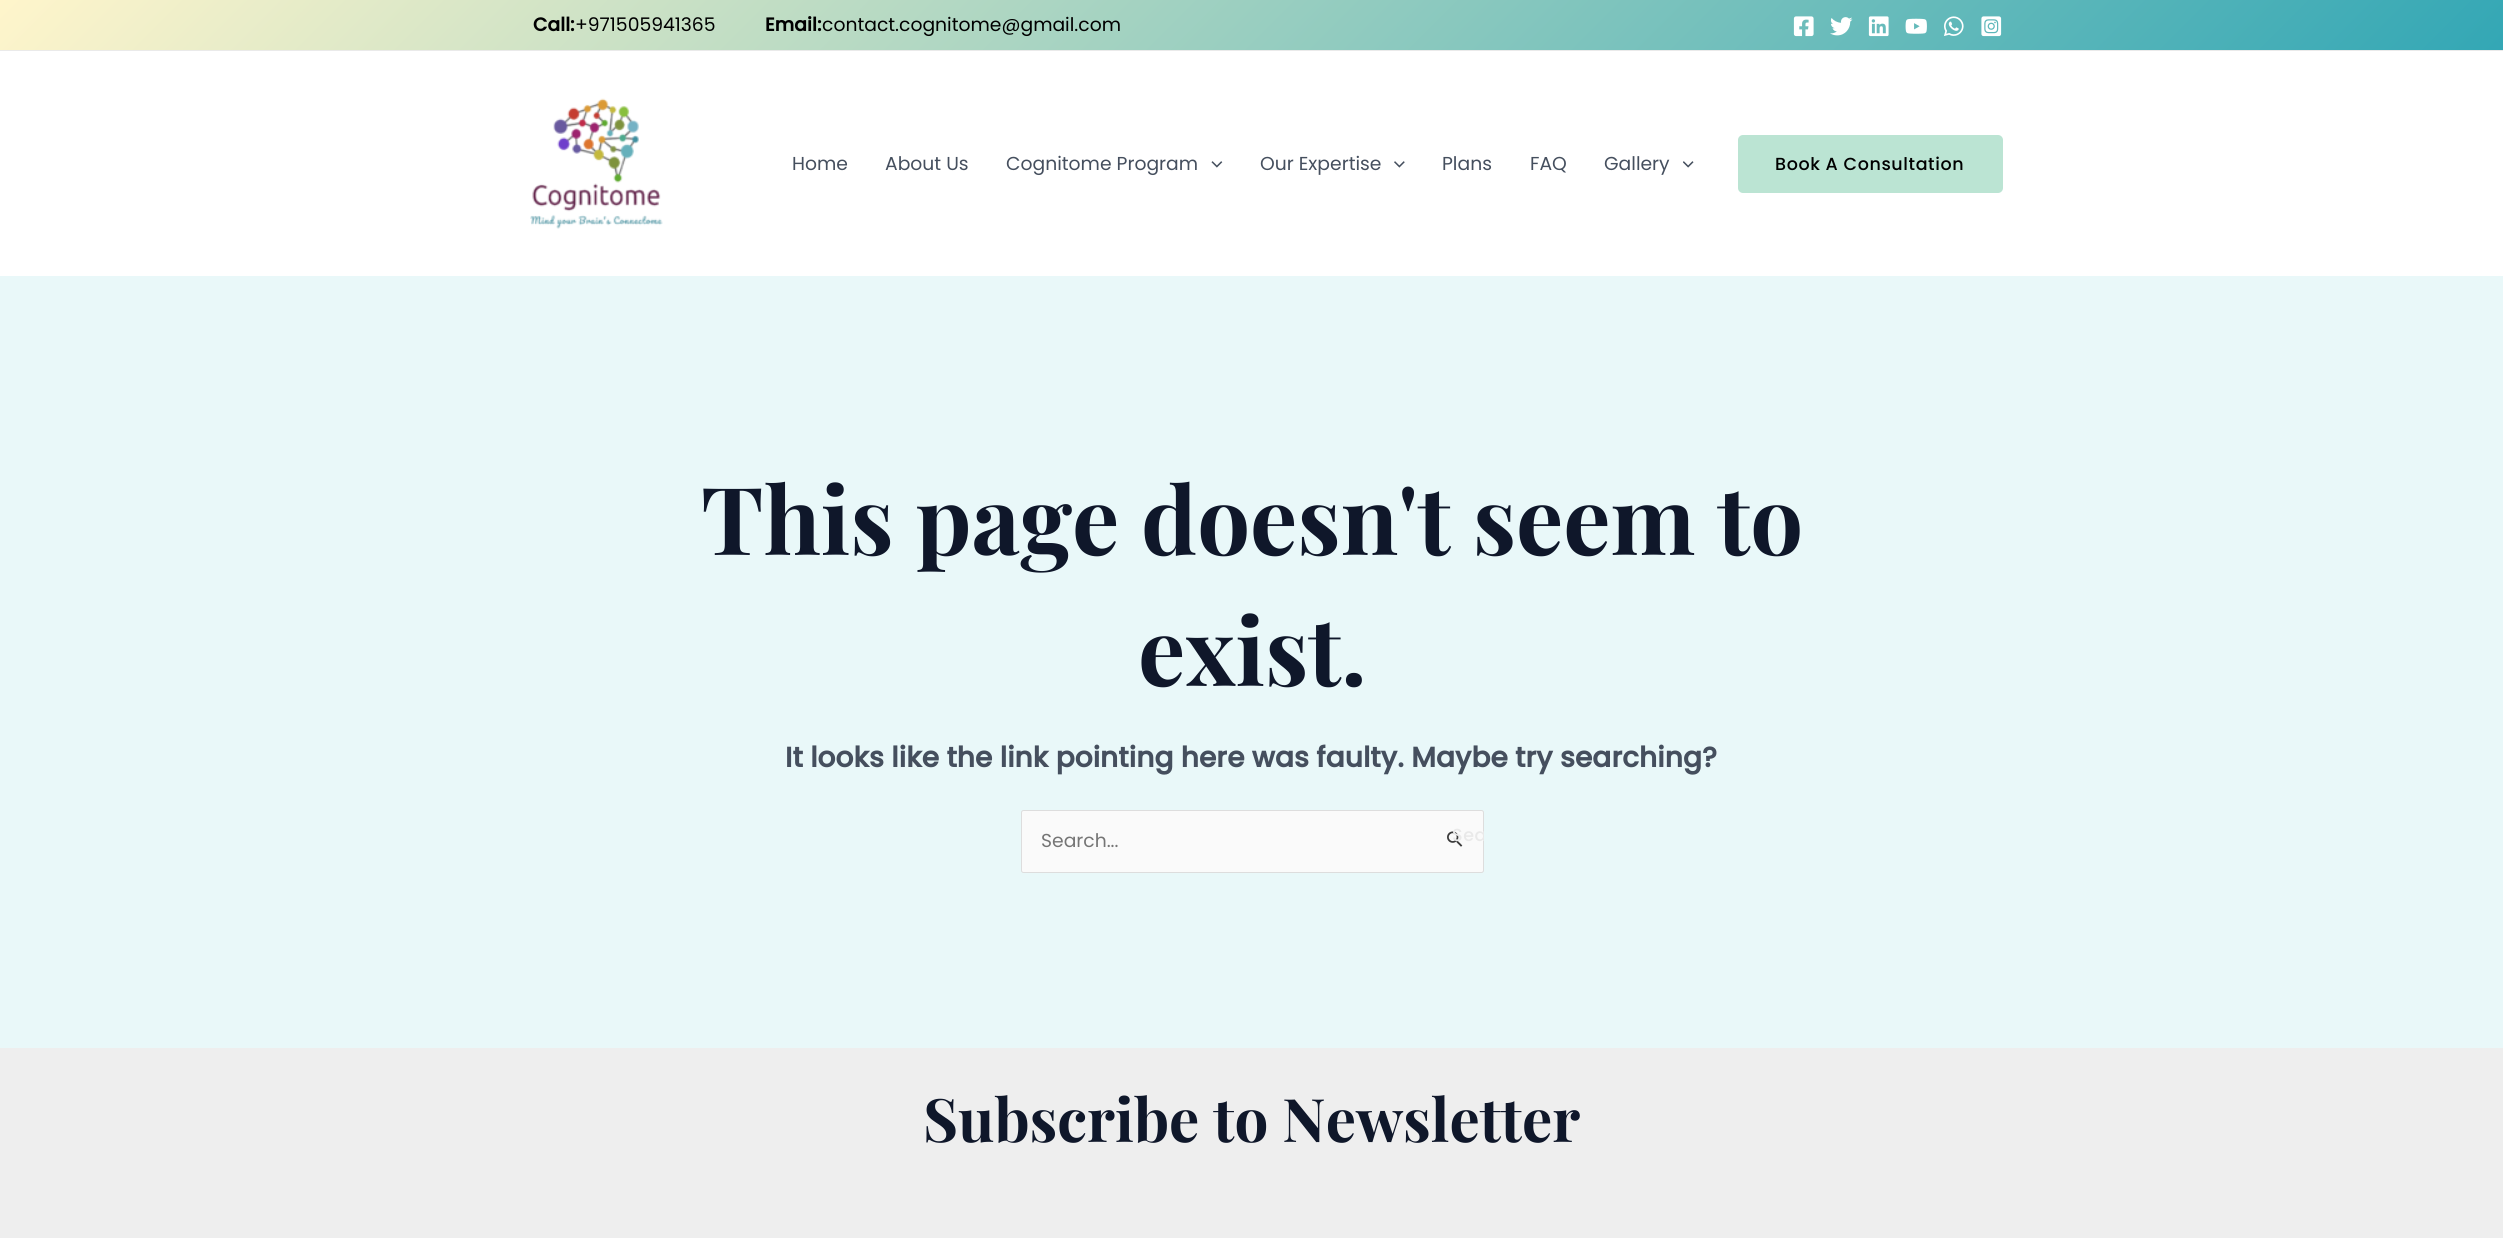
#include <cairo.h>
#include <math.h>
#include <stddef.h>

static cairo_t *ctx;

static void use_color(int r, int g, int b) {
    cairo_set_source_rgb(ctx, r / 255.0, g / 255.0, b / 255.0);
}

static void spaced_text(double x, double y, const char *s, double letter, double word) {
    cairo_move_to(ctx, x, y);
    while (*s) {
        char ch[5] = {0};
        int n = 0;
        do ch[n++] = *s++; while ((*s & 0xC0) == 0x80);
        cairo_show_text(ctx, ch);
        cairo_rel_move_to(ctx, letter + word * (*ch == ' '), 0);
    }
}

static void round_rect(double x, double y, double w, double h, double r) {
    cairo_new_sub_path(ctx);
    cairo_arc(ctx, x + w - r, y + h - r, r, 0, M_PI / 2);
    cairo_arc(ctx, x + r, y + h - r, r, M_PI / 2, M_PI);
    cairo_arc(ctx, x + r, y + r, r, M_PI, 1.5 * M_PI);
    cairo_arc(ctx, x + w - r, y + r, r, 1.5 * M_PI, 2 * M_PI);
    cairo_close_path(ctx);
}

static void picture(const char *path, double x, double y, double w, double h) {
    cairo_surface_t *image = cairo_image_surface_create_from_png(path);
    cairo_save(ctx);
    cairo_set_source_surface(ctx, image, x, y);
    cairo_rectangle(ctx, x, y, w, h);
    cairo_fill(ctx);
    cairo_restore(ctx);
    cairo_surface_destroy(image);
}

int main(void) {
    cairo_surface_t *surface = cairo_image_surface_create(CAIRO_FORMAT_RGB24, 2503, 1238);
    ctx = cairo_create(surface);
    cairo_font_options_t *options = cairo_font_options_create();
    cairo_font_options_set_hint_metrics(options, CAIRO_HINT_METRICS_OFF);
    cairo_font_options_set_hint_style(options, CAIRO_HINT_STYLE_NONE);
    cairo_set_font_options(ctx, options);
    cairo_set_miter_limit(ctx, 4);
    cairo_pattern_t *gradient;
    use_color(233, 248, 249);
    cairo_paint(ctx);
    gradient = cairo_pattern_create_linear(613, -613, 1890, 663);
    cairo_pattern_add_color_stop_rgba(gradient, 0, 1, 0.961, 0.796, 1);
    cairo_pattern_add_color_stop_rgba(gradient, 1, 0.2, 0.655, 0.71, 1);
    cairo_set_source(ctx, gradient);
    cairo_pattern_destroy(gradient);
    cairo_rectangle(ctx, 0, 0, 2503, 50);
    cairo_fill(ctx);
    use_color(234, 234, 234);
    cairo_rectangle(ctx, 0, 50, 2503, 1);
    cairo_fill(ctx);
    cairo_select_font_face(ctx, "Poppins", CAIRO_FONT_SLANT_NORMAL, CAIRO_FONT_WEIGHT_BOLD);
    cairo_set_font_size(ctx, 18.75);
    use_color(0, 0, 0);
    cairo_move_to(ctx, 533, 31);
    cairo_show_text(ctx, "Call:");
    cairo_select_font_face(ctx, "Poppins", CAIRO_FONT_SLANT_NORMAL, CAIRO_FONT_WEIGHT_NORMAL);
    cairo_move_to(ctx, 575, 31);
    cairo_show_text(ctx, "+971505941365");
    cairo_select_font_face(ctx, "Poppins", CAIRO_FONT_SLANT_NORMAL, CAIRO_FONT_WEIGHT_BOLD);
    cairo_move_to(ctx, 765, 31);
    cairo_show_text(ctx, "Email:");
    cairo_select_font_face(ctx, "Poppins", CAIRO_FONT_SLANT_NORMAL, CAIRO_FONT_WEIGHT_NORMAL);
    cairo_move_to(ctx, 822, 31);
    cairo_show_text(ctx, "contact.cognitome@gmail.com");
    picture("img1.png", 1793, 16, 21, 21);
    picture("img2.png", 1830, 17, 23, 19);
    picture("img3.png", 1868, 16, 21, 21);
    picture("img4.png", 1905, 18, 22, 16);
    picture("img5.png", 1944, 16, 20, 20);
    picture("img6.png", 1981, 16, 21, 21);
    use_color(255, 255, 255);
    cairo_rectangle(ctx, 0, 51, 2503, 225);
    cairo_fill(ctx);
    picture("img7.png", 530, 98, 133, 131);
    use_color(69, 79, 94);
    cairo_move_to(ctx, 792, 170);
    cairo_show_text(ctx, "Home");
    cairo_move_to(ctx, 885, 170);
    cairo_show_text(ctx, "About Us");
    cairo_move_to(ctx, 1006, 170);
    cairo_show_text(ctx, "Cognitome Program");
    picture("img8.png", 1211, 161, 12, 7);
    cairo_move_to(ctx, 1260, 170);
    cairo_show_text(ctx, "Our Expertise");
    picture("img9.png", 1394, 161, 11, 7);
    cairo_move_to(ctx, 1442, 170);
    cairo_show_text(ctx, "Plans");
    cairo_move_to(ctx, 1530, 170);
    cairo_show_text(ctx, "FAQ");
    cairo_move_to(ctx, 1604, 170);
    cairo_show_text(ctx, "Gallery");
    picture("img10.png", 1683, 161, 11, 7);
    use_color(187, 228, 211);
    round_rect(1738, 135, 265, 58, 5);
    cairo_fill(ctx);
    cairo_select_font_face(ctx, "Poppins Medium", CAIRO_FONT_SLANT_NORMAL, CAIRO_FONT_WEIGHT_NORMAL);
    cairo_set_font_size(ctx, 17.5);
    use_color(0, 0, 0);
    spaced_text(1775, 170, "Book A Consultation", 0.6, 0);
    cairo_select_font_face(ctx, "Playfair Display", CAIRO_FONT_SLANT_NORMAL, CAIRO_FONT_WEIGHT_BOLD);
    cairo_set_font_size(ctx, 93.75);
    use_color(15, 23, 42);
    cairo_move_to(ctx, 701, 555);
    cairo_show_text(ctx, "This page doesn't seem to");
    cairo_move_to(ctx, 1138, 686);
    cairo_show_text(ctx, "exist.");
    cairo_select_font_face(ctx, "Poppins", CAIRO_FONT_SLANT_NORMAL, CAIRO_FONT_WEIGHT_BOLD);
    cairo_set_font_size(ctx, 28.1);
    use_color(69, 79, 94);
    cairo_move_to(ctx, 785, 767);
    cairo_show_text(ctx, "It looks like the link pointing here was faulty. Maybe try searching?");
    use_color(250, 250, 250);
    round_rect(1021.5, 810.5, 462, 62, 2);
    cairo_fill_preserve(ctx);
    use_color(221, 221, 221);
    cairo_set_line_width(ctx, 1);
    cairo_stroke(ctx);
    cairo_select_font_face(ctx, "Poppins", CAIRO_FONT_SLANT_NORMAL, CAIRO_FONT_WEIGHT_NORMAL);
    cairo_set_font_size(ctx, 18.75);
    use_color(117, 117, 117);
    cairo_move_to(ctx, 1041, 847);
    cairo_show_text(ctx, "Search...");
    picture("img11.png", 1447, 831, 16, 16);
    cairo_save(ctx);
    round_rect(1428, 810, 56, 50, 2.5);
    cairo_clip(ctx);
    cairo_select_font_face(ctx, "Poppins Medium", CAIRO_FONT_SLANT_NORMAL, CAIRO_FONT_WEIGHT_NORMAL);
    cairo_set_font_size(ctx, 17.5);
    use_color(233, 233, 233);
    spaced_text(1452, 841, "Sea", 0.6, 0);
    cairo_restore(ctx);
    use_color(238, 238, 238);
    cairo_rectangle(ctx, 0, 1048, 2503, 190);
    cairo_fill(ctx);
    cairo_select_font_face(ctx, "Playfair Display", CAIRO_FONT_SLANT_NORMAL, CAIRO_FONT_WEIGHT_BOLD);
    cairo_set_font_size(ctx, 60);
    use_color(15, 23, 42);
    cairo_move_to(ctx, 923, 1142);
    cairo_show_text(ctx, "Subscribe to Newsletter");
    cairo_surface_write_to_png(surface, "result.png");
    cairo_font_options_destroy(options);
    cairo_destroy(ctx);
    cairo_surface_destroy(surface);
    return 0;
}
